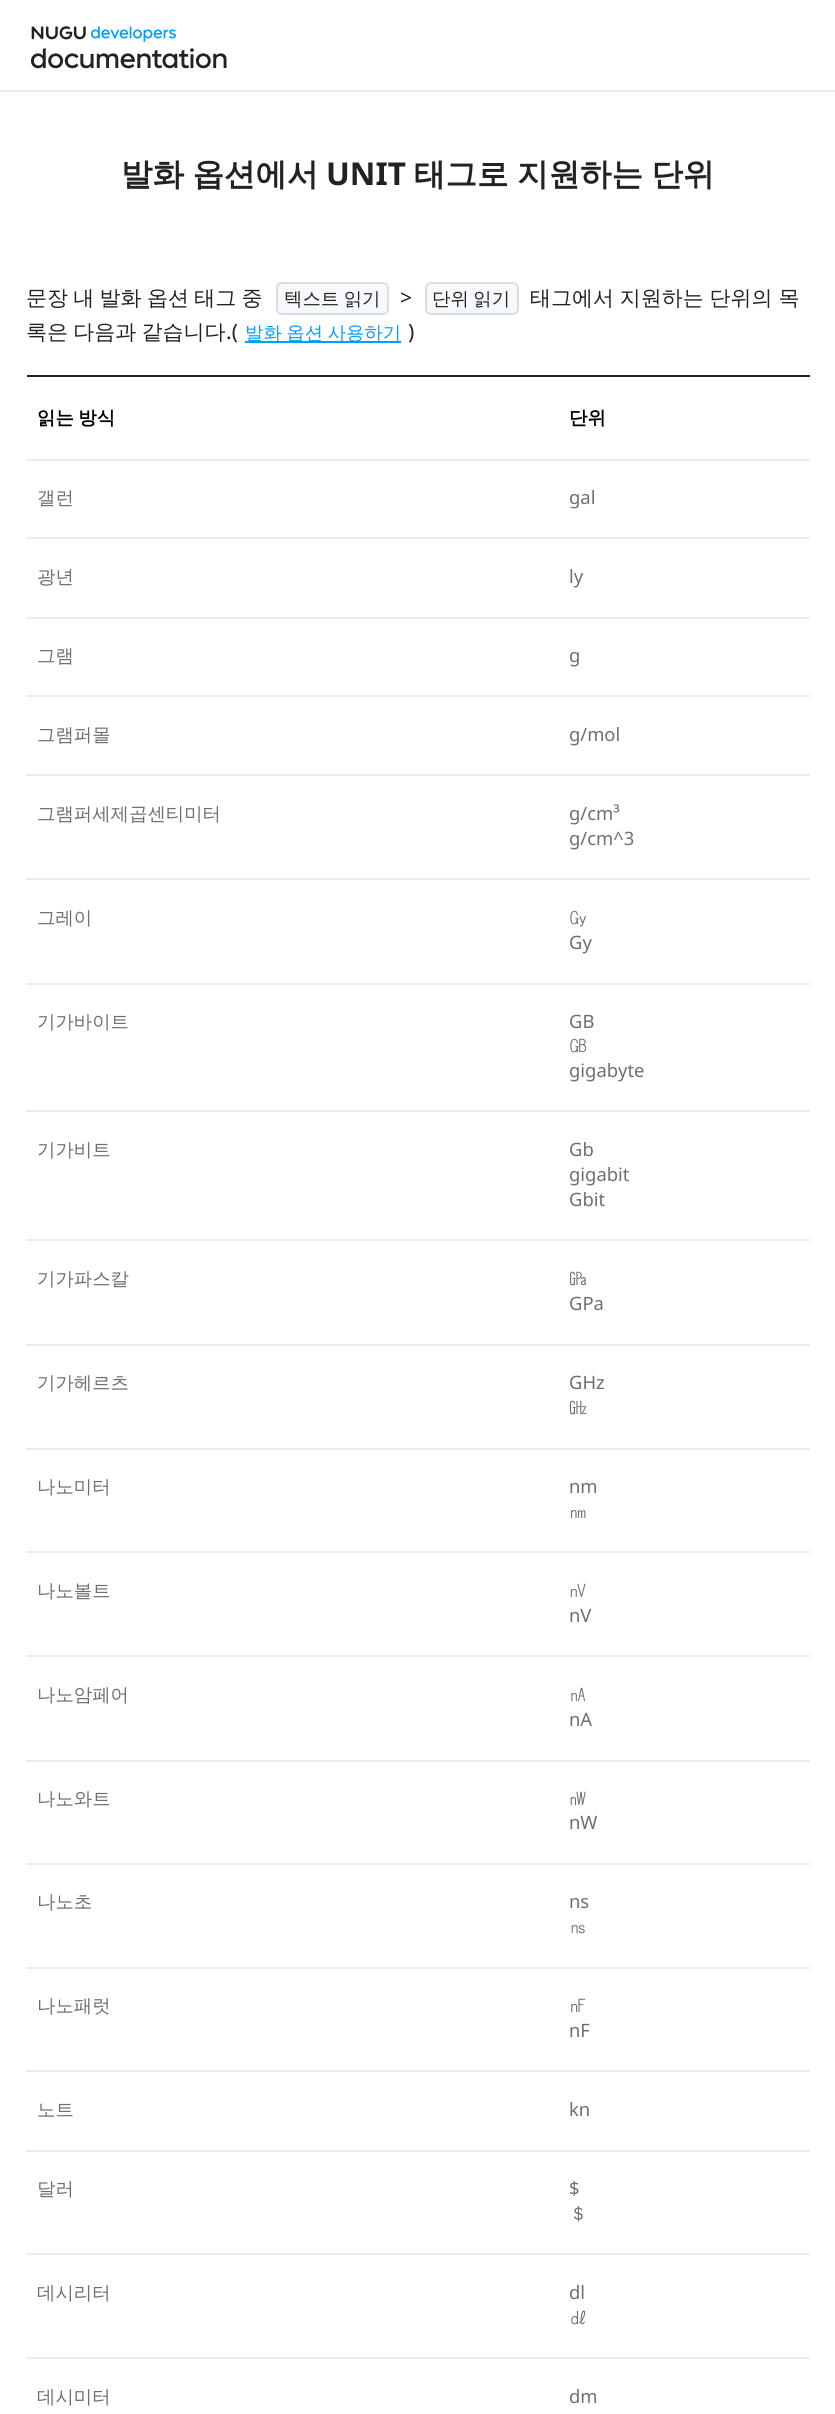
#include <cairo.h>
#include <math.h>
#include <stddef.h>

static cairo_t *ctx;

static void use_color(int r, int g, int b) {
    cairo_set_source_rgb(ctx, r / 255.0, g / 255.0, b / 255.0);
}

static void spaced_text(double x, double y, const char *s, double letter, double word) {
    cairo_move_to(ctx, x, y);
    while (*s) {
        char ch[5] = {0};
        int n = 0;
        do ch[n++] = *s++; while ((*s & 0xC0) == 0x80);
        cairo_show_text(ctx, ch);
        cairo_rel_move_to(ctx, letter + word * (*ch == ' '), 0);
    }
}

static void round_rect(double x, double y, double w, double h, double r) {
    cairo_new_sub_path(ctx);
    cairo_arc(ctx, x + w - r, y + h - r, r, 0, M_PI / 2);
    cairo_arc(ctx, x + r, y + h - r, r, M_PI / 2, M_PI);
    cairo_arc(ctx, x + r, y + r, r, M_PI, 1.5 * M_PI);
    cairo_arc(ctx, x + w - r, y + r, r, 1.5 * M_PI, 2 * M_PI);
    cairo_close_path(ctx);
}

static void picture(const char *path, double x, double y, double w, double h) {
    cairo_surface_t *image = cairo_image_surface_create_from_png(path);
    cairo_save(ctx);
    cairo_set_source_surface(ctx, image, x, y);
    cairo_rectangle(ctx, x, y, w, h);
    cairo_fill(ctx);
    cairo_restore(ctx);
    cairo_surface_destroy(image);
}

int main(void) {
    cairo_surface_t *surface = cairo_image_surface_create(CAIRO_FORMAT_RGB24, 835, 2414);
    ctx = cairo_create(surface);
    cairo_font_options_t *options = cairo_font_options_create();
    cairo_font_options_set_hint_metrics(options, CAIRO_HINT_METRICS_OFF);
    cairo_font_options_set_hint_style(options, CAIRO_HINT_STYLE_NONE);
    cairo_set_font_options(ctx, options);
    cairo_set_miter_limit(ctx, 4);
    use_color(255, 255, 255);
    cairo_paint(ctx);
    use_color(235, 236, 239);
    cairo_rectangle(ctx, 0, 90, 835, 2);
    cairo_fill(ctx);
    picture("img1.png", 30, 26, 197, 43);
    cairo_select_font_face(ctx, "WenQuanYi Zen Hei", CAIRO_FONT_SLANT_NORMAL, CAIRO_FONT_WEIGHT_BOLD);
    cairo_set_font_size(ctx, 31.5);
    use_color(34, 34, 34);
    spaced_text(121, 185, "발화 옵션에서", 0, -1);
    cairo_select_font_face(ctx, "Noto Sans", CAIRO_FONT_SLANT_NORMAL, CAIRO_FONT_WEIGHT_BOLD);
    cairo_move_to(ctx, 326, 185);
    cairo_show_text(ctx, "UNIT");
    cairo_select_font_face(ctx, "WenQuanYi Zen Hei", CAIRO_FONT_SLANT_NORMAL, CAIRO_FONT_WEIGHT_BOLD);
    spaced_text(414, 185, "태그로 지원하는 단위", 0, -1);
    cairo_select_font_face(ctx, "WenQuanYi Zen Hei Medium", CAIRO_FONT_SLANT_NORMAL, CAIRO_FONT_WEIGHT_NORMAL);
    cairo_set_font_size(ctx, 21);
    spaced_text(26, 305, "문장 내 발화 옵션 태그 중", 0, -1);
    use_color(247, 248, 251);
    round_rect(277, 283, 111, 31, 5);
    cairo_fill_preserve(ctx);
    use_color(217, 220, 226);
    cairo_stroke(ctx);
    cairo_set_font_size(ctx, 18.4);
    use_color(34, 34, 34);
    spaced_text(284, 305, "텍스트 읽기", 0, -1);
    cairo_select_font_face(ctx, "Noto Sans", CAIRO_FONT_SLANT_NORMAL, CAIRO_FONT_WEIGHT_NORMAL);
    cairo_set_font_size(ctx, 21);
    cairo_move_to(ctx, 400, 305);
    cairo_show_text(ctx, ">");
    use_color(247, 248, 251);
    round_rect(426, 283, 92, 31, 5);
    cairo_fill_preserve(ctx);
    use_color(217, 220, 226);
    cairo_stroke(ctx);
    cairo_select_font_face(ctx, "WenQuanYi Zen Hei Medium", CAIRO_FONT_SLANT_NORMAL, CAIRO_FONT_WEIGHT_NORMAL);
    cairo_set_font_size(ctx, 18.4);
    use_color(34, 34, 34);
    spaced_text(432, 305, "단위 읽기", 0, -1);
    cairo_set_font_size(ctx, 21);
    spaced_text(530, 305, "태그에서 지원하는 단위의 목", 0, -0.5);
    spaced_text(26, 339, "록은 다음과 같습니다", 0, -1);
    cairo_select_font_face(ctx, "Noto Sans", CAIRO_FONT_SLANT_NORMAL, CAIRO_FONT_WEIGHT_NORMAL);
    cairo_move_to(ctx, 226, 339);
    cairo_show_text(ctx, ".(");
    use_color(1, 157, 255);
    cairo_rectangle(ctx, 245, 341, 156, 2);
    cairo_fill(ctx);
    cairo_select_font_face(ctx, "WenQuanYi Zen Hei Medium", CAIRO_FONT_SLANT_NORMAL, CAIRO_FONT_WEIGHT_NORMAL);
    cairo_set_font_size(ctx, 18.4);
    spaced_text(245, 339, "발화 옵션 사용하기", 0, -1);
    cairo_select_font_face(ctx, "Noto Sans", CAIRO_FONT_SLANT_NORMAL, CAIRO_FONT_WEIGHT_NORMAL);
    cairo_set_font_size(ctx, 21);
    use_color(34, 34, 34);
    cairo_move_to(ctx, 408, 339);
    cairo_show_text(ctx, ")");
    cairo_rectangle(ctx, 27, 375, 783, 2);
    cairo_fill(ctx);
    cairo_select_font_face(ctx, "WenQuanYi Zen Hei", CAIRO_FONT_SLANT_NORMAL, CAIRO_FONT_WEIGHT_BOLD);
    cairo_set_font_size(ctx, 18.4);
    use_color(0, 0, 0);
    spaced_text(37, 424, "읽는 방식", 0, -1);
    use_color(235, 236, 239);
    cairo_rectangle(ctx, 26, 459, 784, 2);
    cairo_fill(ctx);
    use_color(0, 0, 0);
    cairo_move_to(ctx, 569, 424);
    cairo_show_text(ctx, "단위");
    cairo_select_font_face(ctx, "WenQuanYi Zen Hei Medium", CAIRO_FONT_SLANT_NORMAL, CAIRO_FONT_WEIGHT_NORMAL);
    use_color(107, 110, 116);
    cairo_move_to(ctx, 37, 504);
    cairo_show_text(ctx, "갤런");
    use_color(235, 236, 239);
    cairo_rectangle(ctx, 26, 537, 784, 2);
    cairo_fill(ctx);
    cairo_select_font_face(ctx, "Noto Sans", CAIRO_FONT_SLANT_NORMAL, CAIRO_FONT_WEIGHT_NORMAL);
    use_color(107, 110, 116);
    cairo_move_to(ctx, 569, 504);
    cairo_show_text(ctx, "gal");
    cairo_select_font_face(ctx, "WenQuanYi Zen Hei Medium", CAIRO_FONT_SLANT_NORMAL, CAIRO_FONT_WEIGHT_NORMAL);
    cairo_move_to(ctx, 37, 583);
    cairo_show_text(ctx, "광년");
    use_color(235, 236, 239);
    cairo_rectangle(ctx, 26, 617, 784, 2);
    cairo_fill(ctx);
    cairo_select_font_face(ctx, "Noto Sans", CAIRO_FONT_SLANT_NORMAL, CAIRO_FONT_WEIGHT_NORMAL);
    use_color(107, 110, 116);
    cairo_move_to(ctx, 569, 583);
    cairo_show_text(ctx, "ly");
    cairo_select_font_face(ctx, "WenQuanYi Zen Hei Medium", CAIRO_FONT_SLANT_NORMAL, CAIRO_FONT_WEIGHT_NORMAL);
    cairo_move_to(ctx, 37, 662);
    cairo_show_text(ctx, "그램");
    use_color(235, 236, 239);
    cairo_rectangle(ctx, 26, 695, 784, 2);
    cairo_fill(ctx);
    cairo_select_font_face(ctx, "Noto Sans", CAIRO_FONT_SLANT_NORMAL, CAIRO_FONT_WEIGHT_NORMAL);
    use_color(107, 110, 116);
    cairo_move_to(ctx, 569, 662);
    cairo_show_text(ctx, "g");
    cairo_select_font_face(ctx, "WenQuanYi Zen Hei Medium", CAIRO_FONT_SLANT_NORMAL, CAIRO_FONT_WEIGHT_NORMAL);
    cairo_move_to(ctx, 37, 741);
    cairo_show_text(ctx, "그램퍼몰");
    use_color(235, 236, 239);
    cairo_rectangle(ctx, 26, 774, 784, 2);
    cairo_fill(ctx);
    cairo_select_font_face(ctx, "Noto Sans", CAIRO_FONT_SLANT_NORMAL, CAIRO_FONT_WEIGHT_NORMAL);
    use_color(107, 110, 116);
    cairo_move_to(ctx, 569, 741);
    cairo_show_text(ctx, "g/mol");
    cairo_select_font_face(ctx, "WenQuanYi Zen Hei Medium", CAIRO_FONT_SLANT_NORMAL, CAIRO_FONT_WEIGHT_NORMAL);
    cairo_move_to(ctx, 37, 820);
    cairo_show_text(ctx, "그램퍼세제곱센티미터");
    use_color(235, 236, 239);
    cairo_rectangle(ctx, 26, 878, 784, 2);
    cairo_fill(ctx);
    cairo_select_font_face(ctx, "Noto Sans", CAIRO_FONT_SLANT_NORMAL, CAIRO_FONT_WEIGHT_NORMAL);
    use_color(107, 110, 116);
    cairo_move_to(ctx, 569, 820);
    cairo_show_text(ctx, "g/cm³");
    cairo_move_to(ctx, 569, 845);
    cairo_show_text(ctx, "g/cm^3");
    cairo_select_font_face(ctx, "WenQuanYi Zen Hei Medium", CAIRO_FONT_SLANT_NORMAL, CAIRO_FONT_WEIGHT_NORMAL);
    cairo_move_to(ctx, 37, 924);
    cairo_show_text(ctx, "그레이");
    use_color(235, 236, 239);
    cairo_rectangle(ctx, 26, 983, 784, 2);
    cairo_fill(ctx);
    use_color(107, 110, 116);
    cairo_move_to(ctx, 569, 924);
    cairo_show_text(ctx, "㏉");
    cairo_select_font_face(ctx, "Noto Sans", CAIRO_FONT_SLANT_NORMAL, CAIRO_FONT_WEIGHT_NORMAL);
    cairo_move_to(ctx, 569, 949);
    cairo_show_text(ctx, "Gy");
    cairo_select_font_face(ctx, "WenQuanYi Zen Hei Medium", CAIRO_FONT_SLANT_NORMAL, CAIRO_FONT_WEIGHT_NORMAL);
    cairo_move_to(ctx, 37, 1028);
    cairo_show_text(ctx, "기가바이트");
    use_color(235, 236, 239);
    cairo_rectangle(ctx, 26, 1110, 784, 2);
    cairo_fill(ctx);
    cairo_select_font_face(ctx, "Noto Sans", CAIRO_FONT_SLANT_NORMAL, CAIRO_FONT_WEIGHT_NORMAL);
    use_color(107, 110, 116);
    cairo_move_to(ctx, 569, 1028);
    cairo_show_text(ctx, "GB");
    cairo_select_font_face(ctx, "WenQuanYi Zen Hei Medium", CAIRO_FONT_SLANT_NORMAL, CAIRO_FONT_WEIGHT_NORMAL);
    cairo_move_to(ctx, 569, 1052);
    cairo_show_text(ctx, "㎇");
    cairo_select_font_face(ctx, "Noto Sans", CAIRO_FONT_SLANT_NORMAL, CAIRO_FONT_WEIGHT_NORMAL);
    cairo_move_to(ctx, 569, 1077);
    cairo_show_text(ctx, "gigabyte");
    cairo_select_font_face(ctx, "WenQuanYi Zen Hei Medium", CAIRO_FONT_SLANT_NORMAL, CAIRO_FONT_WEIGHT_NORMAL);
    cairo_move_to(ctx, 37, 1156);
    cairo_show_text(ctx, "기가비트");
    use_color(235, 236, 239);
    cairo_rectangle(ctx, 26, 1239, 784, 2);
    cairo_fill(ctx);
    cairo_select_font_face(ctx, "Noto Sans", CAIRO_FONT_SLANT_NORMAL, CAIRO_FONT_WEIGHT_NORMAL);
    use_color(107, 110, 116);
    cairo_move_to(ctx, 569, 1156);
    cairo_show_text(ctx, "Gb");
    cairo_move_to(ctx, 569, 1181);
    cairo_show_text(ctx, "gigabit");
    cairo_move_to(ctx, 569, 1206);
    cairo_show_text(ctx, "Gbit");
    cairo_select_font_face(ctx, "WenQuanYi Zen Hei Medium", CAIRO_FONT_SLANT_NORMAL, CAIRO_FONT_WEIGHT_NORMAL);
    cairo_move_to(ctx, 37, 1285);
    cairo_show_text(ctx, "기가파스칼");
    use_color(235, 236, 239);
    cairo_rectangle(ctx, 26, 1344, 784, 2);
    cairo_fill(ctx);
    use_color(107, 110, 116);
    cairo_move_to(ctx, 569, 1285);
    cairo_show_text(ctx, "㎬");
    cairo_select_font_face(ctx, "Noto Sans", CAIRO_FONT_SLANT_NORMAL, CAIRO_FONT_WEIGHT_NORMAL);
    cairo_move_to(ctx, 569, 1310);
    cairo_show_text(ctx, "GPa");
    cairo_select_font_face(ctx, "WenQuanYi Zen Hei Medium", CAIRO_FONT_SLANT_NORMAL, CAIRO_FONT_WEIGHT_NORMAL);
    cairo_move_to(ctx, 37, 1389);
    cairo_show_text(ctx, "기가헤르츠");
    use_color(235, 236, 239);
    cairo_rectangle(ctx, 26, 1448, 784, 2);
    cairo_fill(ctx);
    cairo_select_font_face(ctx, "Noto Sans", CAIRO_FONT_SLANT_NORMAL, CAIRO_FONT_WEIGHT_NORMAL);
    use_color(107, 110, 116);
    cairo_move_to(ctx, 569, 1389);
    cairo_show_text(ctx, "GHz");
    cairo_select_font_face(ctx, "WenQuanYi Zen Hei Medium", CAIRO_FONT_SLANT_NORMAL, CAIRO_FONT_WEIGHT_NORMAL);
    cairo_move_to(ctx, 569, 1414);
    cairo_show_text(ctx, "㎓");
    cairo_move_to(ctx, 37, 1493);
    cairo_show_text(ctx, "나노미터");
    use_color(235, 236, 239);
    cairo_rectangle(ctx, 26, 1551, 784, 2);
    cairo_fill(ctx);
    cairo_select_font_face(ctx, "Noto Sans", CAIRO_FONT_SLANT_NORMAL, CAIRO_FONT_WEIGHT_NORMAL);
    use_color(107, 110, 116);
    cairo_move_to(ctx, 569, 1493);
    cairo_show_text(ctx, "nm");
    cairo_select_font_face(ctx, "WenQuanYi Zen Hei Medium", CAIRO_FONT_SLANT_NORMAL, CAIRO_FONT_WEIGHT_NORMAL);
    cairo_move_to(ctx, 569, 1518);
    cairo_show_text(ctx, "㎚");
    cairo_move_to(ctx, 37, 1597);
    cairo_show_text(ctx, "나노볼트");
    use_color(235, 236, 239);
    cairo_rectangle(ctx, 26, 1655, 784, 2);
    cairo_fill(ctx);
    use_color(107, 110, 116);
    cairo_move_to(ctx, 569, 1597);
    cairo_show_text(ctx, "㎵");
    cairo_select_font_face(ctx, "Noto Sans", CAIRO_FONT_SLANT_NORMAL, CAIRO_FONT_WEIGHT_NORMAL);
    cairo_move_to(ctx, 569, 1622);
    cairo_show_text(ctx, "nV");
    cairo_select_font_face(ctx, "WenQuanYi Zen Hei Medium", CAIRO_FONT_SLANT_NORMAL, CAIRO_FONT_WEIGHT_NORMAL);
    cairo_move_to(ctx, 37, 1701);
    cairo_show_text(ctx, "나노암페어");
    use_color(235, 236, 239);
    cairo_rectangle(ctx, 26, 1760, 784, 2);
    cairo_fill(ctx);
    use_color(107, 110, 116);
    cairo_move_to(ctx, 569, 1701);
    cairo_show_text(ctx, "㎁");
    cairo_select_font_face(ctx, "Noto Sans", CAIRO_FONT_SLANT_NORMAL, CAIRO_FONT_WEIGHT_NORMAL);
    cairo_move_to(ctx, 569, 1726);
    cairo_show_text(ctx, "nA");
    cairo_select_font_face(ctx, "WenQuanYi Zen Hei Medium", CAIRO_FONT_SLANT_NORMAL, CAIRO_FONT_WEIGHT_NORMAL);
    cairo_move_to(ctx, 37, 1805);
    cairo_show_text(ctx, "나노와트");
    use_color(235, 236, 239);
    cairo_rectangle(ctx, 26, 1863, 784, 2);
    cairo_fill(ctx);
    use_color(107, 110, 116);
    cairo_move_to(ctx, 569, 1805);
    cairo_show_text(ctx, "㎻");
    cairo_select_font_face(ctx, "Noto Sans", CAIRO_FONT_SLANT_NORMAL, CAIRO_FONT_WEIGHT_NORMAL);
    cairo_move_to(ctx, 569, 1829);
    cairo_show_text(ctx, "nW");
    cairo_select_font_face(ctx, "WenQuanYi Zen Hei Medium", CAIRO_FONT_SLANT_NORMAL, CAIRO_FONT_WEIGHT_NORMAL);
    cairo_move_to(ctx, 37, 1908);
    cairo_show_text(ctx, "나노초");
    use_color(235, 236, 239);
    cairo_rectangle(ctx, 26, 1967, 784, 2);
    cairo_fill(ctx);
    cairo_select_font_face(ctx, "Noto Sans", CAIRO_FONT_SLANT_NORMAL, CAIRO_FONT_WEIGHT_NORMAL);
    use_color(107, 110, 116);
    cairo_move_to(ctx, 569, 1908);
    cairo_show_text(ctx, "ns");
    cairo_select_font_face(ctx, "WenQuanYi Zen Hei Medium", CAIRO_FONT_SLANT_NORMAL, CAIRO_FONT_WEIGHT_NORMAL);
    cairo_move_to(ctx, 569, 1933);
    cairo_show_text(ctx, "㎱");
    cairo_move_to(ctx, 37, 2012);
    cairo_show_text(ctx, "나노패럿");
    use_color(235, 236, 239);
    cairo_rectangle(ctx, 26, 2070, 784, 2);
    cairo_fill(ctx);
    use_color(107, 110, 116);
    cairo_move_to(ctx, 569, 2012);
    cairo_show_text(ctx, "㎋");
    cairo_select_font_face(ctx, "Noto Sans", CAIRO_FONT_SLANT_NORMAL, CAIRO_FONT_WEIGHT_NORMAL);
    cairo_move_to(ctx, 569, 2037);
    cairo_show_text(ctx, "nF");
    cairo_select_font_face(ctx, "WenQuanYi Zen Hei Medium", CAIRO_FONT_SLANT_NORMAL, CAIRO_FONT_WEIGHT_NORMAL);
    cairo_move_to(ctx, 37, 2116);
    cairo_show_text(ctx, "노트");
    use_color(235, 236, 239);
    cairo_rectangle(ctx, 26, 2150, 784, 2);
    cairo_fill(ctx);
    cairo_select_font_face(ctx, "Noto Sans", CAIRO_FONT_SLANT_NORMAL, CAIRO_FONT_WEIGHT_NORMAL);
    use_color(107, 110, 116);
    cairo_move_to(ctx, 569, 2116);
    cairo_show_text(ctx, "kn");
    cairo_select_font_face(ctx, "WenQuanYi Zen Hei Medium", CAIRO_FONT_SLANT_NORMAL, CAIRO_FONT_WEIGHT_NORMAL);
    cairo_move_to(ctx, 37, 2195);
    cairo_show_text(ctx, "달러");
    use_color(235, 236, 239);
    cairo_rectangle(ctx, 26, 2253, 784, 2);
    cairo_fill(ctx);
    cairo_select_font_face(ctx, "Noto Sans", CAIRO_FONT_SLANT_NORMAL, CAIRO_FONT_WEIGHT_NORMAL);
    use_color(107, 110, 116);
    cairo_move_to(ctx, 569, 2195);
    cairo_show_text(ctx, "$");
    cairo_select_font_face(ctx, "WenQuanYi Zen Hei Medium", CAIRO_FONT_SLANT_NORMAL, CAIRO_FONT_WEIGHT_NORMAL);
    cairo_move_to(ctx, 569, 2220);
    cairo_show_text(ctx, "＄");
    cairo_move_to(ctx, 37, 2299);
    cairo_show_text(ctx, "데시리터");
    use_color(235, 236, 239);
    cairo_rectangle(ctx, 26, 2357, 784, 2);
    cairo_fill(ctx);
    cairo_select_font_face(ctx, "Noto Sans", CAIRO_FONT_SLANT_NORMAL, CAIRO_FONT_WEIGHT_NORMAL);
    use_color(107, 110, 116);
    cairo_move_to(ctx, 569, 2299);
    cairo_show_text(ctx, "dl");
    cairo_select_font_face(ctx, "WenQuanYi Zen Hei Medium", CAIRO_FONT_SLANT_NORMAL, CAIRO_FONT_WEIGHT_NORMAL);
    cairo_move_to(ctx, 569, 2324);
    cairo_show_text(ctx, "㎗");
    cairo_move_to(ctx, 37, 2403);
    cairo_show_text(ctx, "데시미터");
    cairo_select_font_face(ctx, "Noto Sans", CAIRO_FONT_SLANT_NORMAL, CAIRO_FONT_WEIGHT_NORMAL);
    cairo_move_to(ctx, 569, 2403);
    cairo_show_text(ctx, "dm");
    cairo_surface_write_to_png(surface, "result.png");
    cairo_font_options_destroy(options);
    cairo_destroy(ctx);
    cairo_surface_destroy(surface);
    return 0;
}
